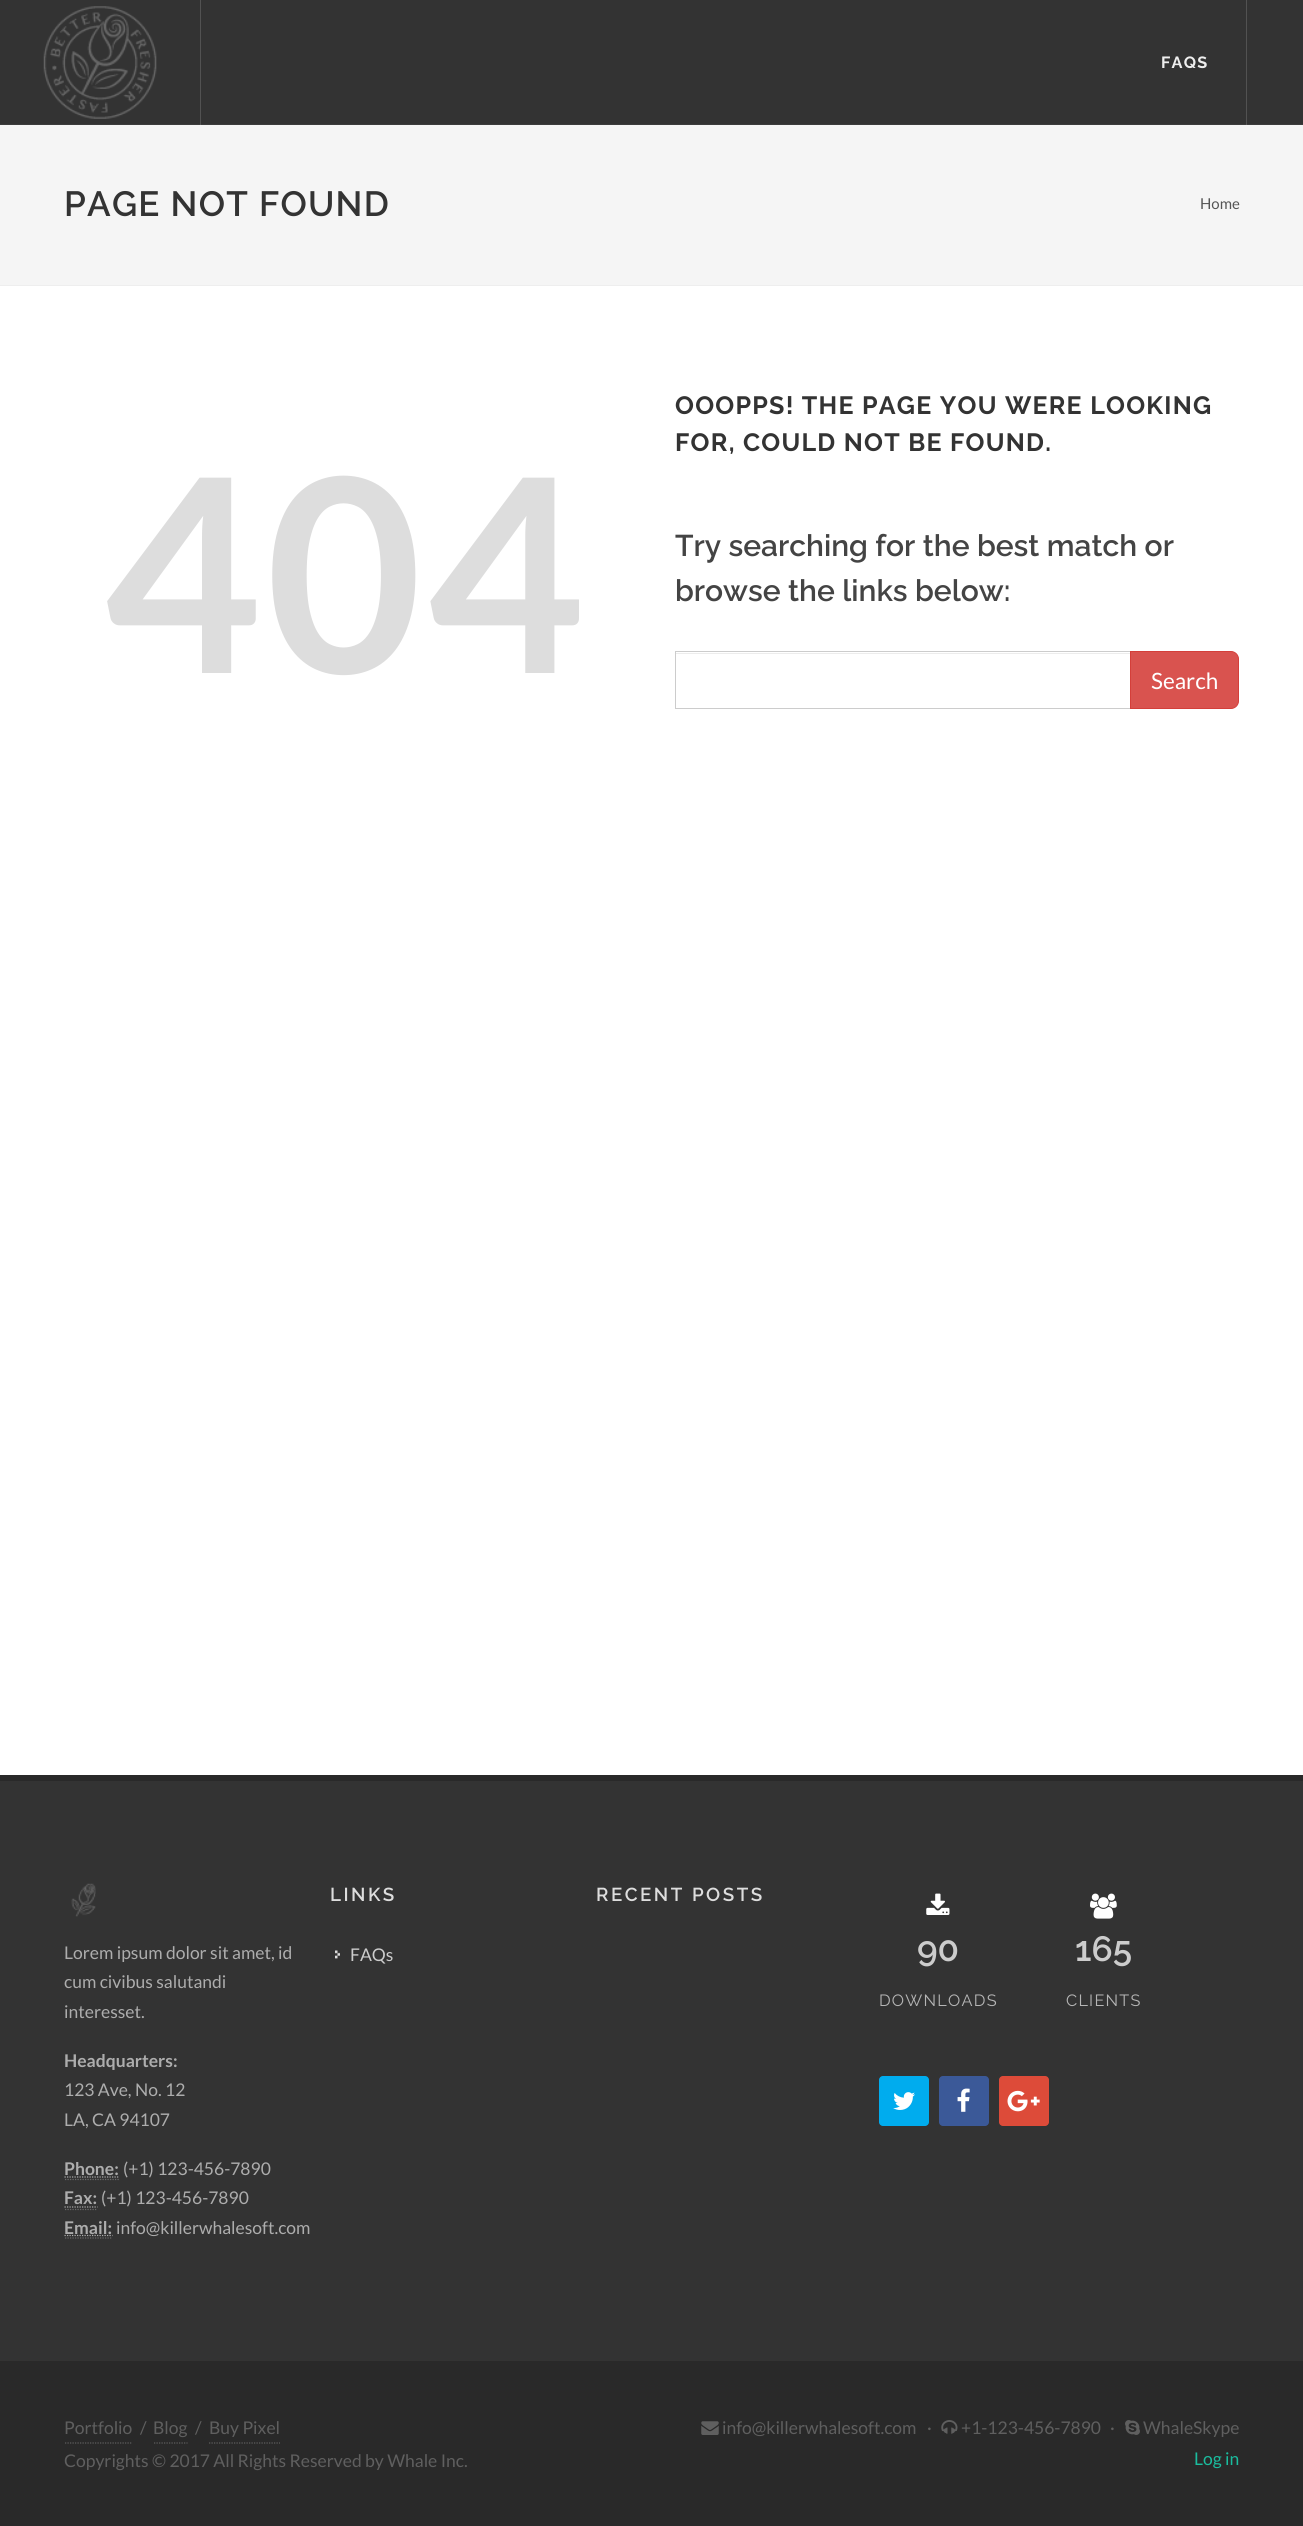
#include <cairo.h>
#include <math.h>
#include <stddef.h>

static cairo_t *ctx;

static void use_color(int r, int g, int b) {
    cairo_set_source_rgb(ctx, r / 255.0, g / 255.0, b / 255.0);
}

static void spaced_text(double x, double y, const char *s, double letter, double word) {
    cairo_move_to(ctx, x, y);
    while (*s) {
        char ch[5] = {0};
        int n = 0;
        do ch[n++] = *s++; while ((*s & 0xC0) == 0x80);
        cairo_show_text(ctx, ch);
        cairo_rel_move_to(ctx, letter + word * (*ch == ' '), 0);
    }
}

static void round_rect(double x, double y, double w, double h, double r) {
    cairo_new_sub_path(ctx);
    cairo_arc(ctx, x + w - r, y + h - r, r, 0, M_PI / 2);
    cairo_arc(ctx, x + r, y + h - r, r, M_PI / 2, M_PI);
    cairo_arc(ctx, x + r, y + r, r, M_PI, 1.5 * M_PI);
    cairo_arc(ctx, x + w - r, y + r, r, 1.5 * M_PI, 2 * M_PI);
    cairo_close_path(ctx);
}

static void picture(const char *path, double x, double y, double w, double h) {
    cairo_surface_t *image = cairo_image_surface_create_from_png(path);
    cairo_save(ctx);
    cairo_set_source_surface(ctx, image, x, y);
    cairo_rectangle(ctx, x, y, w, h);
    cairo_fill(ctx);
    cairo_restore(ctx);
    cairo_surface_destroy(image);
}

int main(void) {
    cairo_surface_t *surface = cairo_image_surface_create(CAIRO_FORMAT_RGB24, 1303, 2526);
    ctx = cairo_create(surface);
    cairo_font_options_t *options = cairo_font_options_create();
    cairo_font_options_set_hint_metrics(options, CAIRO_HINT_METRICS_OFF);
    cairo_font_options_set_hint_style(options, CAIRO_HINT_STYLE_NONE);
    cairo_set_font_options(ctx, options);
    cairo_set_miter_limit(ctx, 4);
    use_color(255, 255, 255);
    cairo_paint(ctx);
    use_color(51, 51, 51);
    cairo_rectangle(ctx, 0, 0, 1303, 124);
    cairo_fill(ctx);
    use_color(82, 82, 82);
    cairo_rectangle(ctx, 200, 0, 1, 125);
    cairo_fill(ctx);
    cairo_rectangle(ctx, 1246, 0, 1, 125);
    cairo_fill(ctx);
    use_color(61, 61, 61);
    cairo_rectangle(ctx, 0, 124, 1303, 1);
    cairo_fill(ctx);
    use_color(90, 90, 90);
    cairo_rectangle(ctx, 200, 124, 1, 1);
    cairo_fill(ctx);
    cairo_rectangle(ctx, 1246, 124, 1, 1);
    cairo_fill(ctx);
    picture("img1.png", 43, 6, 114, 113);
    cairo_select_font_face(ctx, "Raleway", CAIRO_FONT_SLANT_NORMAL, CAIRO_FONT_WEIGHT_BOLD);
    cairo_set_font_size(ctx, 16.25);
    use_color(238, 238, 238);
    spaced_text(1161, 68, "FAQS", 1.25, 0);
    use_color(245, 245, 245);
    cairo_rectangle(ctx, 0, 125, 1303, 160);
    cairo_fill(ctx);
    use_color(238, 238, 238);
    cairo_rectangle(ctx, 0, 285, 1303, 1);
    cairo_fill(ctx);
    cairo_select_font_face(ctx, "Raleway SemiBold", CAIRO_FONT_SLANT_NORMAL, CAIRO_FONT_WEIGHT_NORMAL);
    cairo_set_font_size(ctx, 35);
    use_color(51, 51, 51);
    spaced_text(64, 216, "PAGE NOT FOUND", 1.25, 0);
    cairo_select_font_face(ctx, "Lato", CAIRO_FONT_SLANT_NORMAL, CAIRO_FONT_WEIGHT_NORMAL);
    cairo_set_font_size(ctx, 15);
    use_color(85, 85, 85);
    cairo_move_to(ctx, 1200, 209);
    cairo_show_text(ctx, "Home");
    cairo_select_font_face(ctx, "Lato", CAIRO_FONT_SLANT_NORMAL, CAIRO_FONT_WEIGHT_BOLD);
    cairo_set_font_size(ctx, 270);
    use_color(221, 221, 221);
    spaced_text(104, 673, "404", 5, 0);
    cairo_select_font_face(ctx, "Raleway", CAIRO_FONT_SLANT_NORMAL, CAIRO_FONT_WEIGHT_BOLD);
    cairo_set_font_size(ctx, 25);
    use_color(51, 51, 51);
    spaced_text(675, 414, "OOOPPS! THE PAGE YOU WERE LOOKING", 1.25, 0);
    spaced_text(675, 451, "FOR, COULD NOT BE FOUND.", 1.25, 0);
    cairo_select_font_face(ctx, "Raleway SemiBold", CAIRO_FONT_SLANT_NORMAL, CAIRO_FONT_WEIGHT_NORMAL);
    cairo_set_font_size(ctx, 30);
    use_color(68, 68, 68);
    cairo_move_to(ctx, 675, 556);
    cairo_show_text(ctx, "Try searching for the best match or");
    cairo_move_to(ctx, 675, 601);
    cairo_show_text(ctx, "browse the links below:");
    use_color(236, 236, 236);
    cairo_rectangle(ctx, 676, 653, 454, 1);
    cairo_fill(ctx);
    cairo_rectangle(ctx, 675.5, 651.5, 455, 57);
    use_color(204, 204, 204);
    cairo_set_line_width(ctx, 1);
    cairo_stroke(ctx);
    use_color(217, 83, 79);
    cairo_new_path(ctx);
    cairo_move_to(ctx, 1130.5, 651.5);
    cairo_line_to(ctx, 1231, 651.5);
    cairo_curve_to(ctx, 1235, 651.5, 1238.5, 655, 1238.5, 659);
    cairo_line_to(ctx, 1238.5, 701);
    cairo_curve_to(ctx, 1238.5, 705, 1235, 708.5, 1231, 708.5);
    cairo_line_to(ctx, 1130.5, 708.5);
    cairo_close_path(ctx);
    cairo_fill_preserve(ctx);
    use_color(212, 63, 58);
    cairo_stroke(ctx);
    cairo_select_font_face(ctx, "Lato", CAIRO_FONT_SLANT_NORMAL, CAIRO_FONT_WEIGHT_NORMAL);
    cairo_set_font_size(ctx, 22.5);
    use_color(255, 255, 255);
    cairo_move_to(ctx, 1151, 689);
    cairo_show_text(ctx, "Search");
    use_color(51, 51, 51);
    cairo_rectangle(ctx, 0, 1781, 1303, 580);
    cairo_fill(ctx);
    use_color(41, 41, 41);
    cairo_rectangle(ctx, 0, 1775, 1303, 6);
    cairo_fill(ctx);
    cairo_select_font_face(ctx, "Raleway SemiBold", CAIRO_FONT_SLANT_NORMAL, CAIRO_FONT_WEIGHT_NORMAL);
    cairo_set_font_size(ctx, 18.75);
    use_color(221, 221, 221);
    spaced_text(330, 1901, "LINKS", 2.5, 0);
    picture("img2.png", 335, 1950, 5, 9);
    cairo_select_font_face(ctx, "Lato", CAIRO_FONT_SLANT_NORMAL, CAIRO_FONT_WEIGHT_NORMAL);
    cairo_set_font_size(ctx, 17.5);
    use_color(204, 204, 204);
    cairo_move_to(ctx, 350, 1961);
    cairo_show_text(ctx, "FAQs");
    cairo_select_font_face(ctx, "Raleway SemiBold", CAIRO_FONT_SLANT_NORMAL, CAIRO_FONT_WEIGHT_NORMAL);
    cairo_set_font_size(ctx, 18.75);
    use_color(221, 221, 221);
    spaced_text(596, 1901, "RECENT POSTS", 2.5, 0);
    picture("img3.png", 71, 1883, 25, 34);
    cairo_select_font_face(ctx, "Lato", CAIRO_FONT_SLANT_NORMAL, CAIRO_FONT_WEIGHT_NORMAL);
    cairo_set_font_size(ctx, 17.5);
    use_color(173, 173, 173);
    cairo_move_to(ctx, 64, 1959);
    cairo_show_text(ctx, "Lorem ipsum dolor sit amet, id");
    cairo_move_to(ctx, 64, 1988);
    cairo_show_text(ctx, "cum civibus salutandi");
    cairo_move_to(ctx, 64, 2018);
    cairo_show_text(ctx, "interesset.");
    cairo_select_font_face(ctx, "Lato", CAIRO_FONT_SLANT_NORMAL, CAIRO_FONT_WEIGHT_BOLD);
    cairo_move_to(ctx, 64, 2067);
    cairo_show_text(ctx, "Headquarters:");
    cairo_select_font_face(ctx, "Lato", CAIRO_FONT_SLANT_NORMAL, CAIRO_FONT_WEIGHT_NORMAL);
    cairo_move_to(ctx, 64, 2096);
    cairo_show_text(ctx, "123 Ave, No. 12");
    cairo_move_to(ctx, 64, 2126);
    cairo_show_text(ctx, "LA, CA 94107");
    cairo_select_font_face(ctx, "Lato", CAIRO_FONT_SLANT_NORMAL, CAIRO_FONT_WEIGHT_BOLD);
    cairo_move_to(ctx, 64, 2175);
    cairo_show_text(ctx, "Phone:");
    cairo_new_path(ctx);
    cairo_move_to(ctx, 65, 2179.5);
    cairo_line_to(ctx, 119, 2179.5);
    use_color(105, 105, 105);
    cairo_set_line_width(ctx, 1.2);
    cairo_set_dash(ctx, (double[]){1.25, 1.25}, 2, 0);
    cairo_stroke(ctx);
    cairo_new_path(ctx);
    cairo_move_to(ctx, 64.5, 2177);
    cairo_line_to(ctx, 119, 2177);
    use_color(173, 173, 173);
    cairo_stroke(ctx);
    cairo_select_font_face(ctx, "Lato", CAIRO_FONT_SLANT_NORMAL, CAIRO_FONT_WEIGHT_NORMAL);
    cairo_move_to(ctx, 123, 2175);
    cairo_show_text(ctx, "(+1) 123-456-7890");
    cairo_select_font_face(ctx, "Lato", CAIRO_FONT_SLANT_NORMAL, CAIRO_FONT_WEIGHT_BOLD);
    cairo_move_to(ctx, 64, 2204);
    cairo_show_text(ctx, "Fax:");
    cairo_new_path(ctx);
    cairo_move_to(ctx, 65, 2209.5);
    cairo_line_to(ctx, 97.5, 2209.5);
    use_color(105, 105, 105);
    cairo_stroke(ctx);
    cairo_new_path(ctx);
    cairo_move_to(ctx, 64.5, 2207);
    cairo_line_to(ctx, 97.5, 2207);
    use_color(173, 173, 173);
    cairo_stroke(ctx);
    cairo_select_font_face(ctx, "Lato", CAIRO_FONT_SLANT_NORMAL, CAIRO_FONT_WEIGHT_NORMAL);
    cairo_move_to(ctx, 101, 2204);
    cairo_show_text(ctx, "(+1) 123-456-7890");
    cairo_new_path(ctx);
    cairo_move_to(ctx, 64.5, 2235.5);
    cairo_line_to(ctx, 112.5, 2235.5);
    cairo_stroke(ctx);
    cairo_select_font_face(ctx, "Lato", CAIRO_FONT_SLANT_NORMAL, CAIRO_FONT_WEIGHT_BOLD);
    cairo_move_to(ctx, 64, 2234);
    cairo_show_text(ctx, "Email:");
    cairo_new_path(ctx);
    cairo_move_to(ctx, 65, 2238);
    cairo_line_to(ctx, 112.5, 2238);
    use_color(105, 105, 105);
    cairo_stroke(ctx);
    cairo_select_font_face(ctx, "Lato", CAIRO_FONT_SLANT_NORMAL, CAIRO_FONT_WEIGHT_NORMAL);
    use_color(173, 173, 173);
    cairo_move_to(ctx, 116, 2234);
    cairo_show_text(ctx, "info@killerwhalesoft.com");
    picture("img4.png", 926, 1893, 24, 22);
    cairo_select_font_face(ctx, "Raleway SemiBold", CAIRO_FONT_SLANT_NORMAL, CAIRO_FONT_WEIGHT_NORMAL);
    cairo_set_font_size(ctx, 35);
    use_color(204, 204, 204);
    cairo_move_to(ctx, 917, 1961);
    cairo_show_text(ctx, "90");
    cairo_select_font_face(ctx, "Raleway", CAIRO_FONT_SLANT_NORMAL, CAIRO_FONT_WEIGHT_NORMAL);
    cairo_set_font_size(ctx, 16.25);
    use_color(182, 182, 182);
    spaced_text(879, 2006, "DOWNLOADS", 1.25, 0);
    picture("img5.png", 1090, 1893, 27, 26);
    cairo_select_font_face(ctx, "Raleway SemiBold", CAIRO_FONT_SLANT_NORMAL, CAIRO_FONT_WEIGHT_NORMAL);
    cairo_set_font_size(ctx, 35);
    use_color(204, 204, 204);
    cairo_move_to(ctx, 1075, 1961);
    cairo_show_text(ctx, "165");
    cairo_select_font_face(ctx, "Raleway", CAIRO_FONT_SLANT_NORMAL, CAIRO_FONT_WEIGHT_NORMAL);
    cairo_set_font_size(ctx, 16.25);
    use_color(182, 182, 182);
    spaced_text(1066, 2006, "CLIENTS", 1.25, 0);
    use_color(0, 172, 238);
    round_rect(879, 2076, 50, 50, 4);
    cairo_fill(ctx);
    picture("img6.png", 893, 2092, 22, 18);
    use_color(59, 89, 152);
    round_rect(939, 2076, 50, 50, 4);
    cairo_fill(ctx);
    picture("img7.png", 957, 2088, 13, 24);
    use_color(221, 75, 57);
    round_rect(999, 2076, 50, 50, 4);
    cairo_fill(ctx);
    picture("img8.png", 1007, 2090, 33, 22);
    use_color(41, 41, 41);
    cairo_rectangle(ctx, 0, 2361, 1303, 165);
    cairo_fill(ctx);
    cairo_new_path(ctx);
    cairo_move_to(ctx, 65, 2443);
    cairo_line_to(ctx, 132.5, 2443);
    use_color(95, 95, 95);
    cairo_stroke(ctx);
    cairo_select_font_face(ctx, "Lato", CAIRO_FONT_SLANT_NORMAL, CAIRO_FONT_WEIGHT_NORMAL);
    cairo_set_font_size(ctx, 17.5);
    cairo_move_to(ctx, 64, 2434);
    cairo_show_text(ctx, "Portfolio");
    cairo_move_to(ctx, 140, 2434);
    cairo_show_text(ctx, "/");
    cairo_new_path(ctx);
    cairo_move_to(ctx, 154, 2443);
    cairo_line_to(ctx, 187.5, 2443);
    cairo_stroke(ctx);
    cairo_move_to(ctx, 153, 2434);
    cairo_show_text(ctx, "Blog");
    cairo_move_to(ctx, 195, 2434);
    cairo_show_text(ctx, "/");
    cairo_new_path(ctx);
    cairo_move_to(ctx, 209, 2443);
    cairo_line_to(ctx, 280, 2443);
    cairo_stroke(ctx);
    cairo_move_to(ctx, 209, 2434);
    cairo_show_text(ctx, "Buy Pixel");
    cairo_move_to(ctx, 64, 2467);
    cairo_show_text(ctx, "Copyrights © 2017 All Rights Reserved by Whale Inc.");
    picture("img9.png", 701, 2421, 18, 14);
    cairo_move_to(ctx, 722, 2434);
    cairo_show_text(ctx, "info@killerwhalesoft.com");
    cairo_move_to(ctx, 927, 2434);
    cairo_show_text(ctx, "·");
    picture("img10.png", 941, 2420, 17, 14);
    cairo_move_to(ctx, 961, 2434);
    cairo_show_text(ctx, "+1-123-456-7890");
    cairo_move_to(ctx, 1110, 2434);
    cairo_show_text(ctx, "·");
    picture("img11.png", 1125, 2420, 15, 15);
    cairo_move_to(ctx, 1143, 2434);
    cairo_show_text(ctx, "WhaleSkype");
    use_color(26, 188, 158);
    cairo_move_to(ctx, 1194, 2465);
    cairo_show_text(ctx, "Log in");
    cairo_surface_write_to_png(surface, "result.png");
    cairo_font_options_destroy(options);
    cairo_destroy(ctx);
    cairo_surface_destroy(surface);
    return 0;
}
